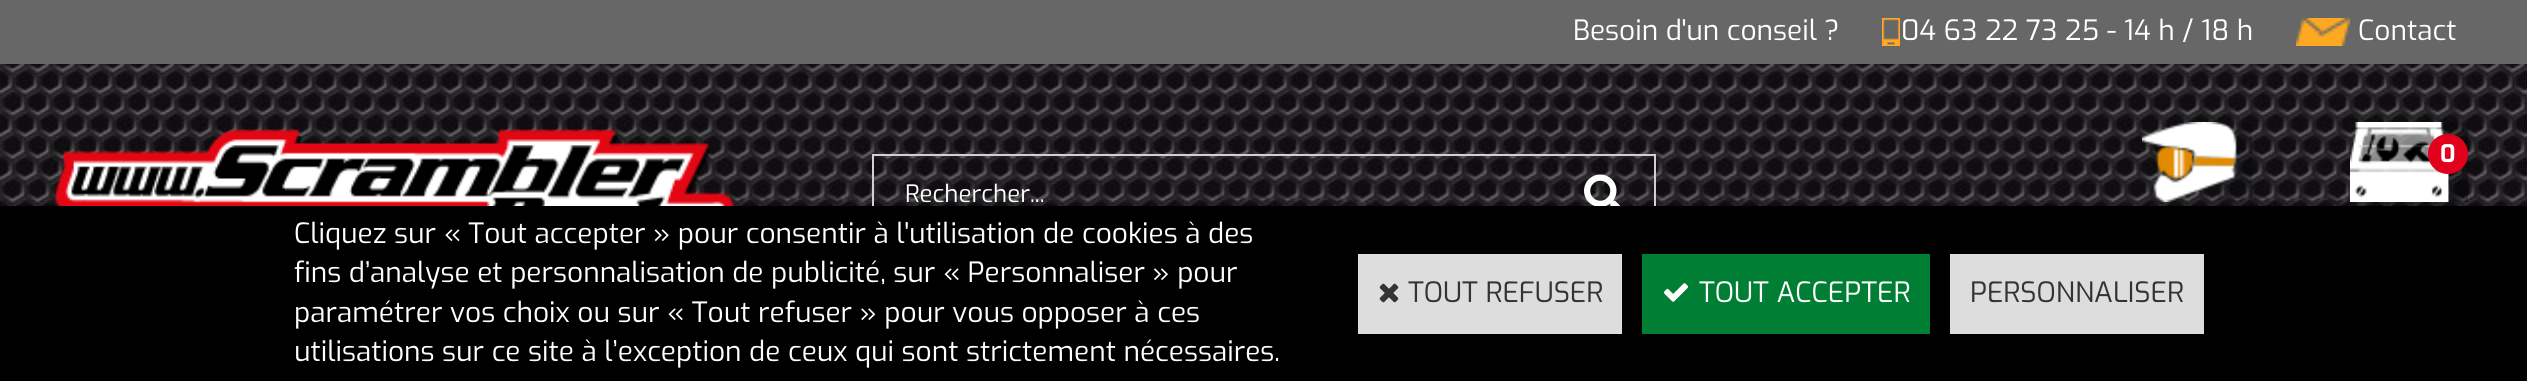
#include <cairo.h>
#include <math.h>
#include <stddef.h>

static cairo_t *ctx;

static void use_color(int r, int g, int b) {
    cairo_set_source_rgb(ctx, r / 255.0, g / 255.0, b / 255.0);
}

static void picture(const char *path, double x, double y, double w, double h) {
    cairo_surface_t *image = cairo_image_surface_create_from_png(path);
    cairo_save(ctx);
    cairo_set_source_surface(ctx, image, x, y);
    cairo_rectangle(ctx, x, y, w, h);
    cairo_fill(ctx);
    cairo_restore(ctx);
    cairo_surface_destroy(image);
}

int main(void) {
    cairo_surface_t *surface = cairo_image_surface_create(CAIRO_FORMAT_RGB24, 2527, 381);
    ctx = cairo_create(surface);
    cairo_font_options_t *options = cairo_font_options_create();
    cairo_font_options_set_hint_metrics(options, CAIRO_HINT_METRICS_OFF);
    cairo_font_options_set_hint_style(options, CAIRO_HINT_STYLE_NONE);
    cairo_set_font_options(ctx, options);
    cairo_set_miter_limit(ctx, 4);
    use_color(255, 255, 255);
    cairo_paint(ctx);
    picture("img1.png", 0, 64, 2527, 142);
    use_color(103, 103, 103);
    cairo_rectangle(ctx, 0, 0, 2527, 64);
    cairo_fill(ctx);
    cairo_select_font_face(ctx, "Exo", CAIRO_FONT_SLANT_NORMAL, CAIRO_FONT_WEIGHT_NORMAL);
    cairo_set_font_size(ctx, 28);
    use_color(255, 255, 255);
    cairo_move_to(ctx, 1573, 40);
    cairo_show_text(ctx, "Besoin d'un conseil ?");
    picture("img2.png", 1882, 18, 18, 28);
    cairo_move_to(ctx, 1901, 40);
    cairo_show_text(ctx, "04 63 22 73 25 - 14 h / 18 h");
    picture("img3.png", 2296, 18, 54, 28);
    cairo_move_to(ctx, 2358, 40);
    cairo_show_text(ctx, "Contact");
    picture("img4.png", 55, 129, 681, 77);
    picture("img5.png", 2142, 122, 110, 80);
    picture("img6.png", 2350, 122, 118, 80);
    use_color(226, 0, 26);
    cairo_arc(ctx, 2448, 154, 20, 0, 2 * M_PI);
    cairo_fill(ctx);
    cairo_select_font_face(ctx, "Exo", CAIRO_FONT_SLANT_NORMAL, CAIRO_FONT_WEIGHT_BOLD);
    cairo_set_font_size(ctx, 24);
    use_color(255, 255, 255);
    cairo_move_to(ctx, 2440, 162);
    cairo_show_text(ctx, "0");
    use_color(208, 208, 208);
    cairo_rectangle(ctx, 872, 154, 784, 2);
    cairo_fill(ctx);
    cairo_rectangle(ctx, 872, 154, 2, 52);
    cairo_fill(ctx);
    cairo_select_font_face(ctx, "Exo", CAIRO_FONT_SLANT_NORMAL, CAIRO_FONT_WEIGHT_NORMAL);
    use_color(255, 255, 255);
    cairo_move_to(ctx, 905, 202);
    cairo_show_text(ctx, "Rechercher...");
    use_color(208, 208, 208);
    cairo_rectangle(ctx, 1654, 154, 2, 52);
    cairo_fill(ctx);
    picture("img7.png", 1584, 174, 37, 32);
    use_color(0, 0, 0);
    cairo_rectangle(ctx, 0, 206, 2527, 175);
    cairo_fill(ctx);
    cairo_set_font_size(ctx, 28);
    use_color(255, 255, 255);
    cairo_move_to(ctx, 294, 243);
    cairo_show_text(ctx, "Cliquez sur « Tout accepter » pour consentir à l'utilisation de cookies à des");
    cairo_move_to(ctx, 294, 282);
    cairo_show_text(ctx, "fins d’analyse et personnalisation de publicité, sur « Personnaliser » pour");
    cairo_move_to(ctx, 294, 322);
    cairo_show_text(ctx, "paramétrer vos choix ou sur « Tout refuser » pour vous opposer à ces");
    cairo_move_to(ctx, 294, 361);
    cairo_show_text(ctx, "utilisations sur ce site à l’exception de ceux qui sont strictement nécessaires.");
    use_color(221, 221, 221);
    cairo_rectangle(ctx, 1358, 254, 264, 80);
    cairo_fill(ctx);
    picture("img8.png", 1379, 283, 20, 20);
    use_color(51, 51, 51);
    cairo_move_to(ctx, 1408, 302);
    cairo_show_text(ctx, "TOUT REFUSER");
    use_color(0, 126, 51);
    cairo_rectangle(ctx, 1642, 254, 288, 80);
    cairo_fill(ctx);
    picture("img9.png", 1663, 283, 26, 19);
    use_color(255, 255, 255);
    cairo_move_to(ctx, 1699, 302);
    cairo_show_text(ctx, "TOUT ACCEPTER");
    use_color(221, 221, 221);
    cairo_rectangle(ctx, 1950, 254, 254, 80);
    cairo_fill(ctx);
    use_color(51, 51, 51);
    cairo_move_to(ctx, 1970, 302);
    cairo_show_text(ctx, "PERSONNALISER");
    cairo_surface_write_to_png(surface, "result.png");
    cairo_font_options_destroy(options);
    cairo_destroy(ctx);
    cairo_surface_destroy(surface);
    return 0;
}
